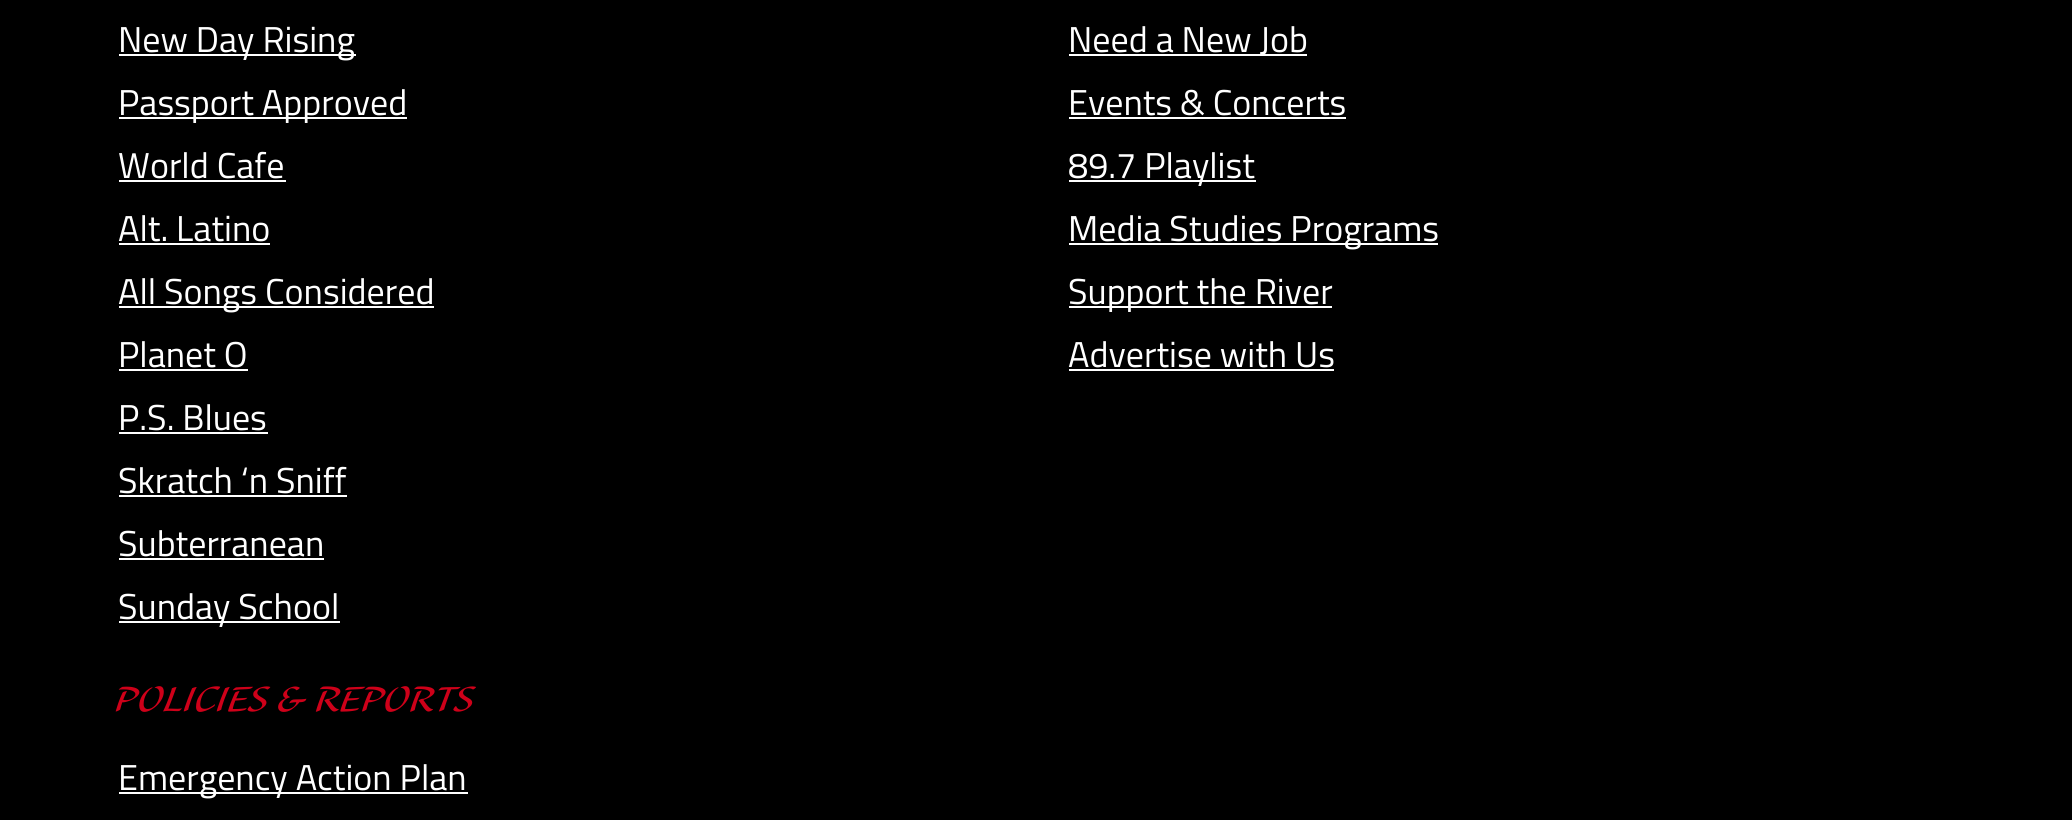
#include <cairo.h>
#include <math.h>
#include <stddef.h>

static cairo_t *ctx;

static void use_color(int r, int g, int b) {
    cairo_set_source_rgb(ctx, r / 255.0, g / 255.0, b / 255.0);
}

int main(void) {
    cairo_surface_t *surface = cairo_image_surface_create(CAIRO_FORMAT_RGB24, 2072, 820);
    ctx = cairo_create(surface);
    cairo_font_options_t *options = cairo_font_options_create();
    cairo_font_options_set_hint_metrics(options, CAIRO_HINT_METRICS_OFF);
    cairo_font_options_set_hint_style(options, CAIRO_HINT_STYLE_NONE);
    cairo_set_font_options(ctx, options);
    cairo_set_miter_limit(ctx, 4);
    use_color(0, 0, 0);
    cairo_paint(ctx);
    use_color(255, 255, 255);
    cairo_rectangle(ctx, 119, 54, 237, 2);
    cairo_fill(ctx);
    cairo_select_font_face(ctx, "Titillium Web", CAIRO_FONT_SLANT_NORMAL, CAIRO_FONT_WEIGHT_NORMAL);
    cairo_set_font_size(ctx, 36);
    cairo_move_to(ctx, 118, 52);
    cairo_show_text(ctx, "New Day Rising");
    cairo_rectangle(ctx, 119, 117, 288, 2);
    cairo_fill(ctx);
    cairo_move_to(ctx, 118, 115);
    cairo_show_text(ctx, "Passport Approved");
    cairo_move_to(ctx, 118, 178);
    cairo_show_text(ctx, "World Cafe");
    cairo_rectangle(ctx, 119, 180, 167, 2);
    cairo_fill(ctx);
    cairo_move_to(ctx, 118, 241);
    cairo_show_text(ctx, "Alt. Latino");
    cairo_rectangle(ctx, 119, 243, 151, 2);
    cairo_fill(ctx);
    cairo_rectangle(ctx, 119, 306, 315, 2);
    cairo_fill(ctx);
    cairo_move_to(ctx, 118, 304);
    cairo_show_text(ctx, "All Songs Considered");
    cairo_move_to(ctx, 118, 367);
    cairo_show_text(ctx, "Planet O");
    cairo_rectangle(ctx, 119, 369, 129, 2);
    cairo_fill(ctx);
    cairo_move_to(ctx, 118, 430);
    cairo_show_text(ctx, "P.S. Blues");
    cairo_rectangle(ctx, 119, 432, 149, 2);
    cairo_fill(ctx);
    cairo_move_to(ctx, 118, 493);
    cairo_show_text(ctx, "Skratch ‘n Sniff");
    cairo_rectangle(ctx, 119, 495, 228, 2);
    cairo_fill(ctx);
    cairo_move_to(ctx, 118, 556);
    cairo_show_text(ctx, "Subterranean");
    cairo_rectangle(ctx, 119, 558, 205, 2);
    cairo_fill(ctx);
    cairo_rectangle(ctx, 119, 621, 221, 2);
    cairo_fill(ctx);
    cairo_move_to(ctx, 118, 619);
    cairo_show_text(ctx, "Sunday School");
    cairo_rectangle(ctx, 1069, 54, 238, 2);
    cairo_fill(ctx);
    cairo_move_to(ctx, 1068, 52);
    cairo_show_text(ctx, "Need a New Job");
    cairo_move_to(ctx, 1068, 115);
    cairo_show_text(ctx, "Events & Concerts");
    cairo_rectangle(ctx, 1069, 117, 277, 2);
    cairo_fill(ctx);
    cairo_rectangle(ctx, 1069, 180, 187, 2);
    cairo_fill(ctx);
    cairo_move_to(ctx, 1068, 178);
    cairo_show_text(ctx, "89.7 Playlist");
    cairo_rectangle(ctx, 1069, 243, 369, 2);
    cairo_fill(ctx);
    cairo_move_to(ctx, 1068, 241);
    cairo_show_text(ctx, "Media Studies Programs");
    cairo_rectangle(ctx, 1069, 306, 263, 2);
    cairo_fill(ctx);
    cairo_move_to(ctx, 1068, 304);
    cairo_show_text(ctx, "Support the River");
    cairo_move_to(ctx, 1068, 367);
    cairo_show_text(ctx, "Advertise with Us");
    cairo_rectangle(ctx, 1069, 369, 265, 2);
    cairo_fill(ctx);
    cairo_select_font_face(ctx, "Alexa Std", CAIRO_FONT_SLANT_NORMAL, CAIRO_FONT_WEIGHT_NORMAL);
    cairo_set_font_size(ctx, 45);
    use_color(206, 0, 25);
    cairo_move_to(ctx, 114, 711);
    cairo_show_text(ctx, "POLICIES & REPORTS");
    use_color(255, 255, 255);
    cairo_rectangle(ctx, 119, 792, 349, 2);
    cairo_fill(ctx);
    cairo_select_font_face(ctx, "Titillium Web", CAIRO_FONT_SLANT_NORMAL, CAIRO_FONT_WEIGHT_NORMAL);
    cairo_set_font_size(ctx, 36);
    cairo_move_to(ctx, 118, 790);
    cairo_show_text(ctx, "Emergency Action Plan");
    cairo_surface_write_to_png(surface, "result.png");
    cairo_font_options_destroy(options);
    cairo_destroy(ctx);
    cairo_surface_destroy(surface);
    return 0;
}
